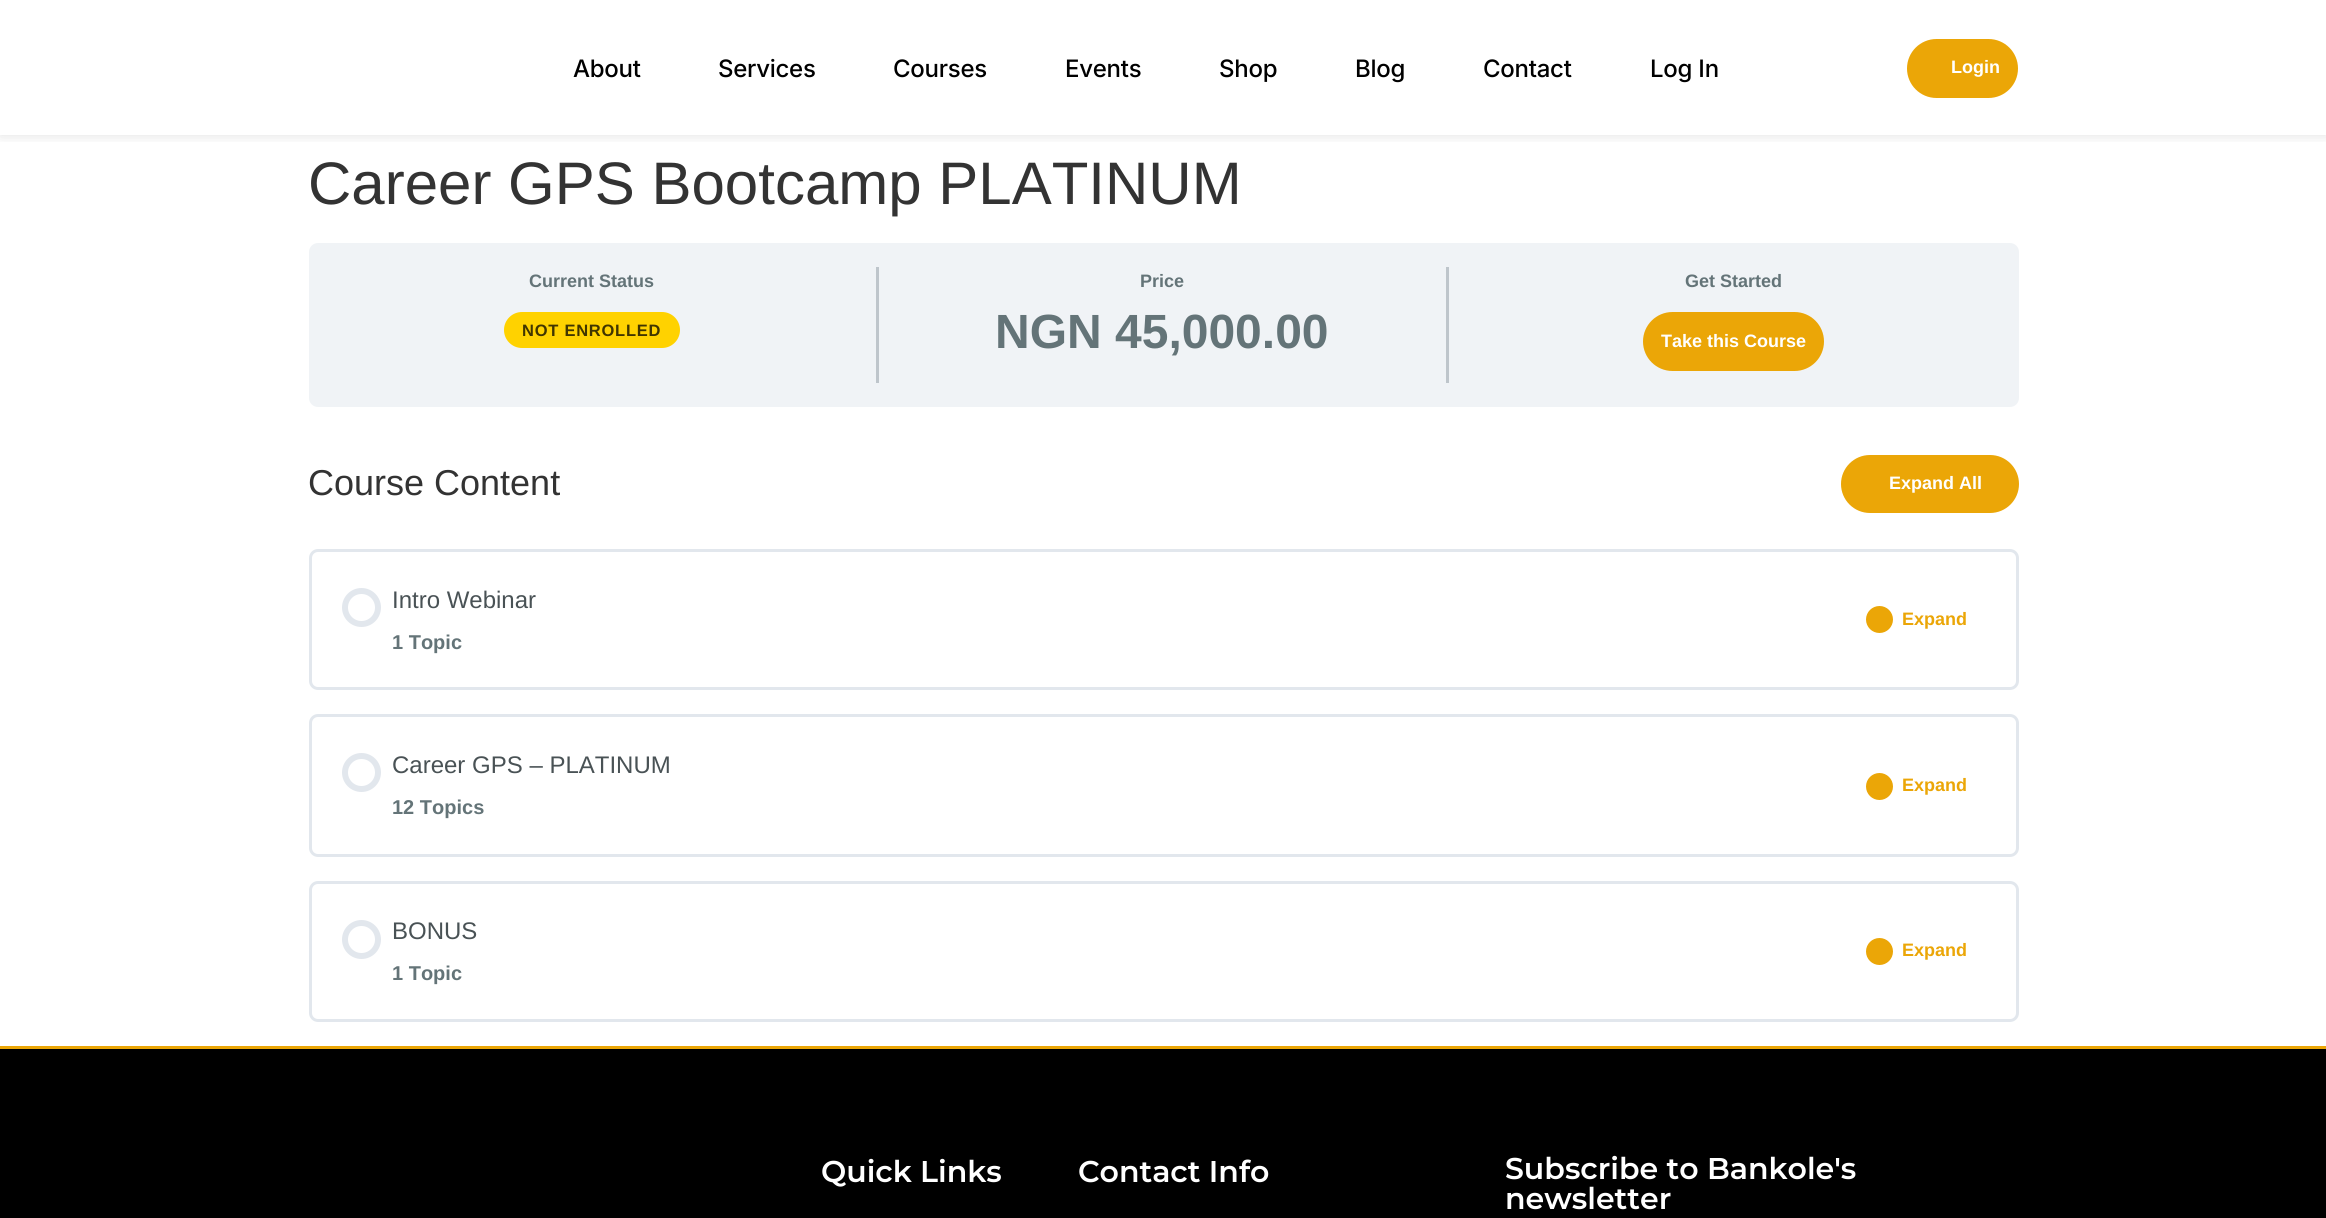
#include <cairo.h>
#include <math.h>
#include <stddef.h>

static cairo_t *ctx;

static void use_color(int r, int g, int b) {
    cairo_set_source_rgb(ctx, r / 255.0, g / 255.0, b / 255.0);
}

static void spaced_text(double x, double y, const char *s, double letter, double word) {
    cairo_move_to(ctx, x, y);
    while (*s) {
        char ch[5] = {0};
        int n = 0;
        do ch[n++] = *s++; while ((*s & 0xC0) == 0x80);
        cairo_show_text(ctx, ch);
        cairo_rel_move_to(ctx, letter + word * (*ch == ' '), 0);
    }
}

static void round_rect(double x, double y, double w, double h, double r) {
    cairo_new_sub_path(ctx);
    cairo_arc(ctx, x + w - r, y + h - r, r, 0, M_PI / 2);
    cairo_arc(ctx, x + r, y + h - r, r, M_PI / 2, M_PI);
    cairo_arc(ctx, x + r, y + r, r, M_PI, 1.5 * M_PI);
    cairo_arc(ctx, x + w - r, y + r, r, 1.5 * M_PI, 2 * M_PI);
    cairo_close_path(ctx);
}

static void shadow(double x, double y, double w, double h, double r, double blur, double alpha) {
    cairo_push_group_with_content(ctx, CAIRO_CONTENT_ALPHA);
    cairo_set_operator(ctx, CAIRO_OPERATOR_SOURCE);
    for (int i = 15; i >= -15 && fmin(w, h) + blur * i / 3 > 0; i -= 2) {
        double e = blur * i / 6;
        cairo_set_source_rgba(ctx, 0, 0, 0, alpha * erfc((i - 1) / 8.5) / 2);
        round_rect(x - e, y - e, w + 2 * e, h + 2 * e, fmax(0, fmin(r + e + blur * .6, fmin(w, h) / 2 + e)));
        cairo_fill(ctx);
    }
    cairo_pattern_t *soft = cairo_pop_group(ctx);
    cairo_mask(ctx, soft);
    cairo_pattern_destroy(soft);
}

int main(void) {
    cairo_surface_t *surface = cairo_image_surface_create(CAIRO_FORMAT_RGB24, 2326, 1218);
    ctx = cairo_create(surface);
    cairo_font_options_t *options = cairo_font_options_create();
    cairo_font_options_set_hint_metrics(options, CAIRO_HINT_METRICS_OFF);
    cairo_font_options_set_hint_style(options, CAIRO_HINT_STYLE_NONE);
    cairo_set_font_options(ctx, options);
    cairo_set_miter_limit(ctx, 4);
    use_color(255, 255, 255);
    cairo_paint(ctx);
    cairo_save(ctx);
    cairo_rectangle(ctx, 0, 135, 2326, 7);
    cairo_clip(ctx);
    use_color(0, 0, 0);
    shadow(0, 0, 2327, 135, 0, 7.5, 0.12);
    cairo_restore(ctx);
    cairo_select_font_face(ctx, "Inter Medium", CAIRO_FONT_SLANT_NORMAL, CAIRO_FONT_WEIGHT_NORMAL);
    cairo_set_font_size(ctx, 24);
    use_color(0, 0, 0);
    spaced_text(573, 77, "About", -0.25, 0);
    spaced_text(718, 77, "Services", -0.25, 0);
    spaced_text(893, 77, "Courses", -0.25, 0);
    spaced_text(1065, 77, "Events", -0.25, 0);
    spaced_text(1219, 77, "Shop", -0.25, 0);
    spaced_text(1355, 77, "Blog", -0.25, 0);
    spaced_text(1483, 77, "Contact", -0.25, 0);
    spaced_text(1650, 77, "Log In", -0.25, 0);
    use_color(235, 166, 7);
    round_rect(1907, 39, 111, 59, 29.5);
    cairo_fill(ctx);
    cairo_select_font_face(ctx, "Liberation Sans", CAIRO_FONT_SLANT_NORMAL, CAIRO_FONT_WEIGHT_BOLD);
    cairo_set_font_size(ctx, 18);
    use_color(255, 255, 255);
    cairo_move_to(ctx, 1951, 73);
    cairo_show_text(ctx, "Login");
    cairo_select_font_face(ctx, "Liberation Sans", CAIRO_FONT_SLANT_NORMAL, CAIRO_FONT_WEIGHT_NORMAL);
    cairo_set_font_size(ctx, 60);
    use_color(51, 51, 51);
    cairo_move_to(ctx, 308, 204);
    cairo_show_text(ctx, "Career GPS Bootcamp PLATINUM");
    use_color(240, 243, 246);
    round_rect(309, 243, 1710, 164, 9);
    cairo_fill(ctx);
    use_color(190, 197, 203);
    cairo_rectangle(ctx, 876, 267, 3, 116);
    cairo_fill(ctx);
    cairo_select_font_face(ctx, "Liberation Sans", CAIRO_FONT_SLANT_NORMAL, CAIRO_FONT_WEIGHT_BOLD);
    cairo_set_font_size(ctx, 18);
    use_color(100, 116, 120);
    cairo_move_to(ctx, 529, 287);
    cairo_show_text(ctx, "Current Status");
    use_color(255, 210, 0);
    round_rect(504, 312, 176, 36, 18);
    cairo_fill(ctx);
    cairo_set_font_size(ctx, 16.5);
    use_color(64, 53, 0);
    spaced_text(522, 336, "NOT ENROLLED", 0.75, 0);
    use_color(190, 197, 203);
    cairo_rectangle(ctx, 1446, 267, 3, 116);
    cairo_fill(ctx);
    cairo_set_font_size(ctx, 18);
    use_color(100, 116, 120);
    cairo_move_to(ctx, 1140, 287);
    cairo_show_text(ctx, "Price");
    cairo_set_font_size(ctx, 48);
    cairo_move_to(ctx, 995, 348);
    cairo_show_text(ctx, "NGN 45,000.00");
    cairo_set_font_size(ctx, 18);
    cairo_move_to(ctx, 1685, 287);
    cairo_show_text(ctx, "Get Started");
    use_color(235, 166, 7);
    round_rect(1643, 312, 181, 59, 29.5);
    cairo_fill(ctx);
    use_color(255, 255, 255);
    cairo_move_to(ctx, 1661, 347);
    cairo_show_text(ctx, "Take this Course");
    cairo_select_font_face(ctx, "Liberation Sans", CAIRO_FONT_SLANT_NORMAL, CAIRO_FONT_WEIGHT_NORMAL);
    cairo_set_font_size(ctx, 36);
    use_color(51, 51, 51);
    cairo_move_to(ctx, 308, 495);
    cairo_show_text(ctx, "Course Content");
    use_color(235, 166, 7);
    round_rect(1841, 455, 178, 58, 29);
    cairo_fill(ctx);
    cairo_select_font_face(ctx, "Liberation Sans", CAIRO_FONT_SLANT_NORMAL, CAIRO_FONT_WEIGHT_BOLD);
    cairo_set_font_size(ctx, 18);
    use_color(255, 255, 255);
    cairo_move_to(ctx, 1889, 489);
    cairo_show_text(ctx, "Expand All");
    round_rect(310.5, 550.5, 1707, 138, 7.5);
    use_color(226, 231, 237);
    cairo_set_line_width(ctx, 3);
    cairo_stroke(ctx);
    cairo_arc(ctx, 361.5, 607.5, 16.5, 0, 2 * M_PI);
    cairo_set_line_width(ctx, 6);
    cairo_stroke(ctx);
    cairo_select_font_face(ctx, "Liberation Sans", CAIRO_FONT_SLANT_NORMAL, CAIRO_FONT_WEIGHT_NORMAL);
    cairo_set_font_size(ctx, 24);
    use_color(73, 82, 85);
    cairo_move_to(ctx, 392, 608);
    cairo_show_text(ctx, "Intro Webinar");
    cairo_select_font_face(ctx, "Liberation Sans", CAIRO_FONT_SLANT_NORMAL, CAIRO_FONT_WEIGHT_BOLD);
    cairo_set_font_size(ctx, 20);
    use_color(100, 116, 120);
    cairo_move_to(ctx, 392, 649);
    cairo_show_text(ctx, "1 Topic");
    use_color(235, 166, 7);
    cairo_new_path(ctx);
    cairo_arc(ctx, 1879.5, 619.5, 13.5, 0, 2 * M_PI);
    cairo_fill(ctx);
    cairo_set_font_size(ctx, 18);
    cairo_move_to(ctx, 1902, 625);
    cairo_show_text(ctx, "Expand");
    round_rect(310.5, 715.5, 1707, 140, 7.5);
    use_color(226, 231, 237);
    cairo_set_line_width(ctx, 3);
    cairo_stroke(ctx);
    cairo_arc(ctx, 361.5, 772.5, 16.5, 0, 2 * M_PI);
    cairo_set_line_width(ctx, 6);
    cairo_stroke(ctx);
    cairo_select_font_face(ctx, "Liberation Sans", CAIRO_FONT_SLANT_NORMAL, CAIRO_FONT_WEIGHT_NORMAL);
    cairo_set_font_size(ctx, 24);
    use_color(73, 82, 85);
    cairo_move_to(ctx, 392, 773);
    cairo_show_text(ctx, "Career GPS – PLATINUM");
    cairo_select_font_face(ctx, "Liberation Sans", CAIRO_FONT_SLANT_NORMAL, CAIRO_FONT_WEIGHT_BOLD);
    cairo_set_font_size(ctx, 20);
    use_color(100, 116, 120);
    cairo_move_to(ctx, 392, 814);
    cairo_show_text(ctx, "12 Topics");
    use_color(235, 166, 7);
    cairo_new_path(ctx);
    cairo_arc(ctx, 1879.5, 786.5, 13.5, 0, 2 * M_PI);
    cairo_fill(ctx);
    cairo_set_font_size(ctx, 18);
    cairo_move_to(ctx, 1902, 791);
    cairo_show_text(ctx, "Expand");
    round_rect(310.5, 882.5, 1707, 138, 7.5);
    use_color(226, 231, 237);
    cairo_set_line_width(ctx, 3);
    cairo_stroke(ctx);
    cairo_arc(ctx, 361.5, 939.5, 16.5, 0, 2 * M_PI);
    cairo_set_line_width(ctx, 6);
    cairo_stroke(ctx);
    cairo_select_font_face(ctx, "Liberation Sans", CAIRO_FONT_SLANT_NORMAL, CAIRO_FONT_WEIGHT_NORMAL);
    cairo_set_font_size(ctx, 24);
    use_color(73, 82, 85);
    cairo_move_to(ctx, 392, 939);
    cairo_show_text(ctx, "BONUS");
    cairo_select_font_face(ctx, "Liberation Sans", CAIRO_FONT_SLANT_NORMAL, CAIRO_FONT_WEIGHT_BOLD);
    cairo_set_font_size(ctx, 20);
    use_color(100, 116, 120);
    cairo_move_to(ctx, 392, 980);
    cairo_show_text(ctx, "1 Topic");
    use_color(235, 166, 7);
    cairo_new_path(ctx);
    cairo_arc(ctx, 1879.5, 951.5, 13.5, 0, 2 * M_PI);
    cairo_fill(ctx);
    cairo_set_font_size(ctx, 18);
    cairo_move_to(ctx, 1902, 956);
    cairo_show_text(ctx, "Expand");
    use_color(0, 0, 0);
    cairo_rectangle(ctx, 0, 1049, 2326, 169);
    cairo_fill(ctx);
    use_color(235, 166, 7);
    cairo_rectangle(ctx, 0, 1046, 2326, 3);
    cairo_fill(ctx);
    cairo_select_font_face(ctx, "Montserrat SemiBold", CAIRO_FONT_SLANT_NORMAL, CAIRO_FONT_WEIGHT_NORMAL);
    cairo_set_font_size(ctx, 30);
    use_color(255, 255, 255);
    cairo_move_to(ctx, 821, 1182);
    cairo_show_text(ctx, "Quick Links");
    cairo_move_to(ctx, 1078, 1182);
    cairo_show_text(ctx, "Contact Info");
    cairo_move_to(ctx, 1505, 1179);
    cairo_show_text(ctx, "Subscribe to Bankole's");
    cairo_move_to(ctx, 1505, 1209);
    cairo_show_text(ctx, "newsletter");
    cairo_surface_write_to_png(surface, "result.png");
    cairo_font_options_destroy(options);
    cairo_destroy(ctx);
    cairo_surface_destroy(surface);
    return 0;
}
